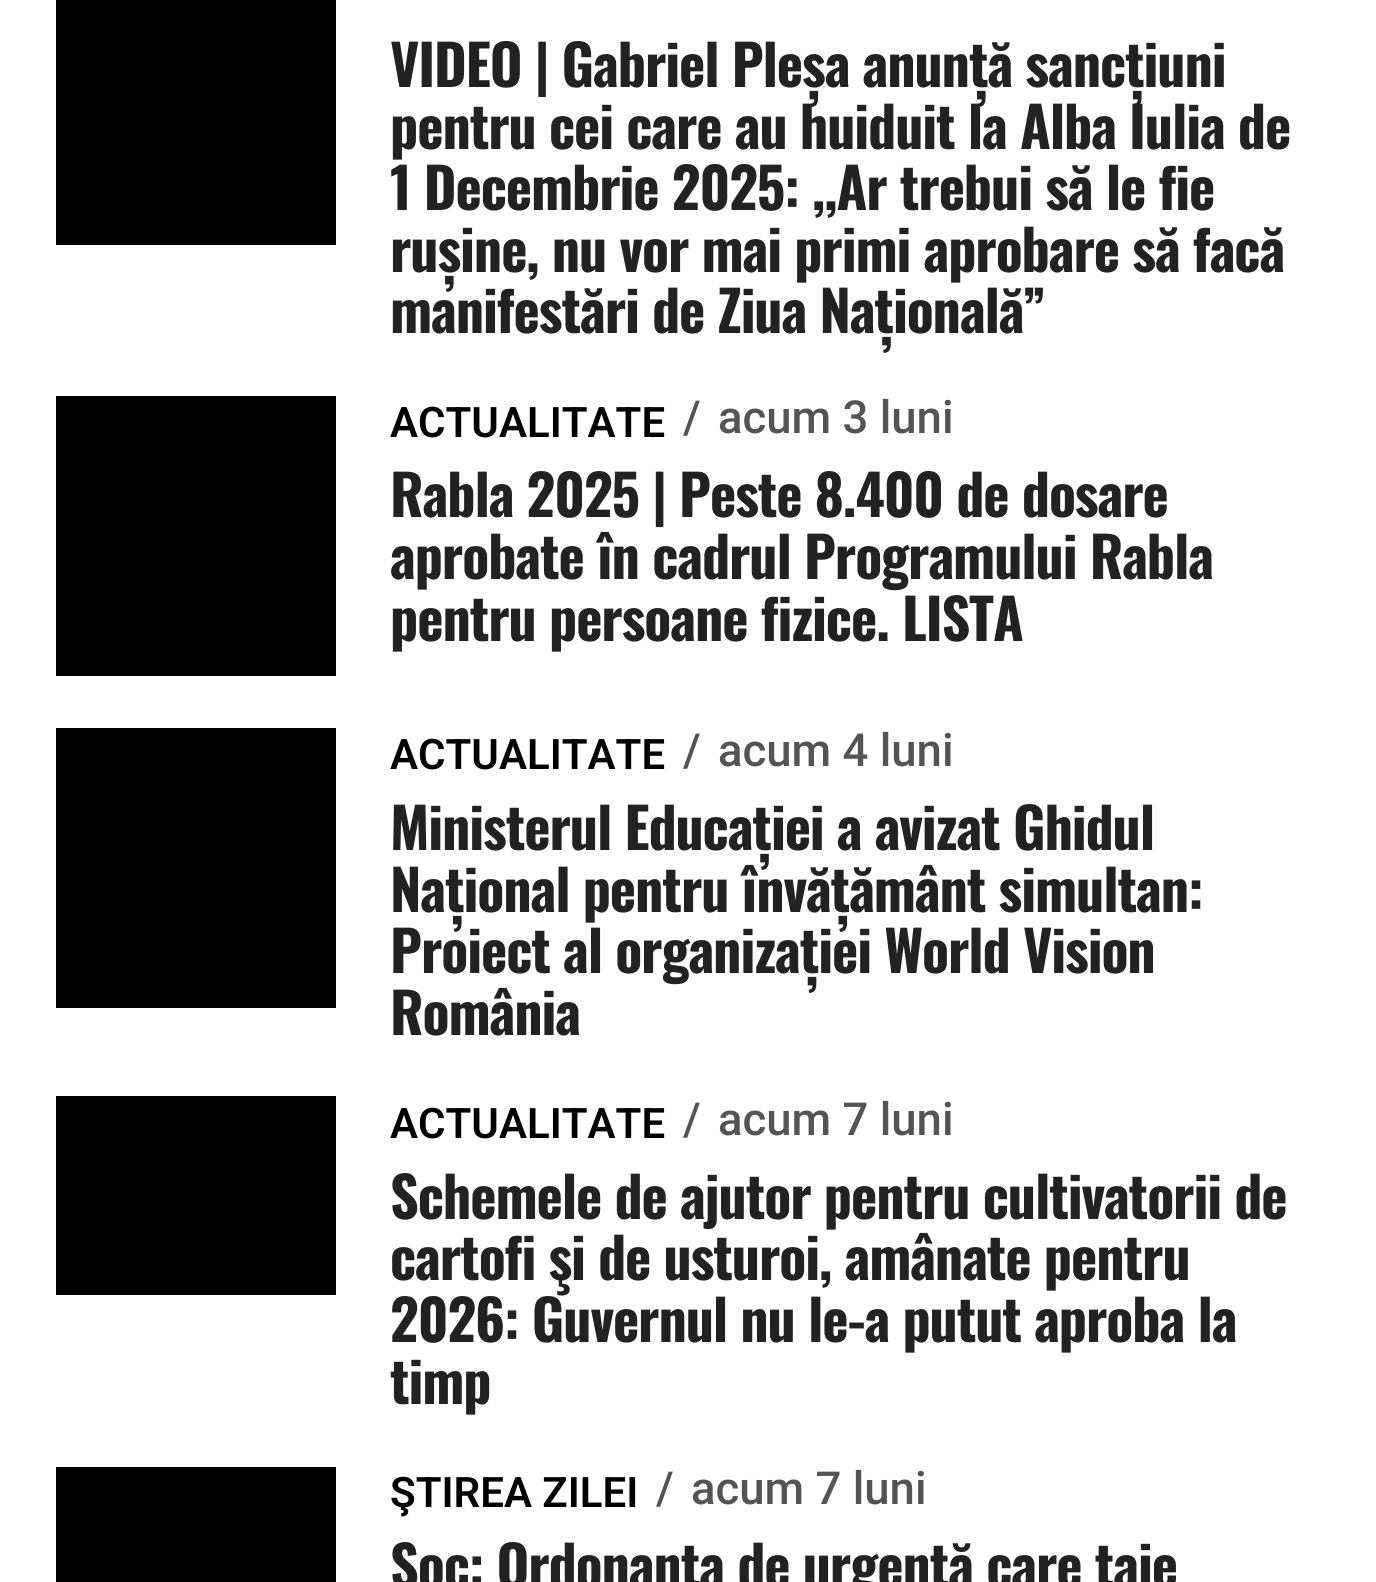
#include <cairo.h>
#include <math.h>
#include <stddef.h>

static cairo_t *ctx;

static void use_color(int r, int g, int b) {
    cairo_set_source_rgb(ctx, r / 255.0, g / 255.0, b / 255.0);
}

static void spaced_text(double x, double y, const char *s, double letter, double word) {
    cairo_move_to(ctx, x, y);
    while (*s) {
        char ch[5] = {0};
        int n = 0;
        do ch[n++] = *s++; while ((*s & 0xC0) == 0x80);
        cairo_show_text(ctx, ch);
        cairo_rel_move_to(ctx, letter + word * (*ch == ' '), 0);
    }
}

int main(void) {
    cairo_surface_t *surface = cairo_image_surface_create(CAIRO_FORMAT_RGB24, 1376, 1582);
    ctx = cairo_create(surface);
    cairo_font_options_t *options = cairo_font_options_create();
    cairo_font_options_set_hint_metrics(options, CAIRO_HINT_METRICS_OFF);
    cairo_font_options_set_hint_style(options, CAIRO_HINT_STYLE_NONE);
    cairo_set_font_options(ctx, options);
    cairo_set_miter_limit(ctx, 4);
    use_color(255, 255, 255);
    cairo_paint(ctx);
    use_color(0, 0, 0);
    cairo_rectangle(ctx, 56, 0, 280, 245);
    cairo_fill(ctx);
    cairo_select_font_face(ctx, "Oswald", CAIRO_FONT_SLANT_NORMAL, CAIRO_FONT_WEIGHT_BOLD);
    cairo_set_font_size(ctx, 56);
    use_color(34, 34, 34);
    spaced_text(390, 87, "VIDEO | Gabriel Pleșa anunță sancțiuni", -1.1, 0);
    spaced_text(390, 149, "pentru cei care au huiduit la Alba Iulia de", -1.1, 0);
    spaced_text(390, 210, "1 Decembrie 2025: ,,Ar trebui să le fie", -1.1, 0);
    spaced_text(390, 272, "rușine, nu vor mai primi aprobare să facă", -1.1, 0);
    spaced_text(390, 333, "manifestări de Ziua Națională”", -1.1, 0);
    use_color(0, 0, 0);
    cairo_rectangle(ctx, 56, 396, 280, 280);
    cairo_fill(ctx);
    cairo_select_font_face(ctx, "Roboto SemiBold", CAIRO_FONT_SLANT_NORMAL, CAIRO_FONT_WEIGHT_NORMAL);
    cairo_set_font_size(ctx, 42);
    cairo_move_to(ctx, 390, 437);
    cairo_show_text(ctx, "ACTUALITATE");
    cairo_select_font_face(ctx, "Roboto Medium", CAIRO_FONT_SLANT_NORMAL, CAIRO_FONT_WEIGHT_NORMAL);
    cairo_set_font_size(ctx, 45.5);
    use_color(84, 84, 84);
    cairo_move_to(ctx, 683, 433);
    cairo_show_text(ctx, "/");
    cairo_move_to(ctx, 718, 433);
    cairo_show_text(ctx, "acum 3 luni");
    cairo_select_font_face(ctx, "Oswald", CAIRO_FONT_SLANT_NORMAL, CAIRO_FONT_WEIGHT_BOLD);
    cairo_set_font_size(ctx, 56);
    use_color(34, 34, 34);
    spaced_text(390, 517, "Rabla 2025 | Peste 8.400 de dosare", -1.1, 0);
    spaced_text(390, 579, "aprobate în cadrul Programului Rabla", -1.1, 0);
    spaced_text(390, 641, "pentru persoane fizice. LISTA", -1.1, 0);
    use_color(0, 0, 0);
    cairo_rectangle(ctx, 56, 728, 280, 280);
    cairo_fill(ctx);
    cairo_select_font_face(ctx, "Roboto SemiBold", CAIRO_FONT_SLANT_NORMAL, CAIRO_FONT_WEIGHT_NORMAL);
    cairo_set_font_size(ctx, 42);
    cairo_move_to(ctx, 390, 769);
    cairo_show_text(ctx, "ACTUALITATE");
    cairo_select_font_face(ctx, "Roboto Medium", CAIRO_FONT_SLANT_NORMAL, CAIRO_FONT_WEIGHT_NORMAL);
    cairo_set_font_size(ctx, 45.5);
    use_color(84, 84, 84);
    cairo_move_to(ctx, 683, 766);
    cairo_show_text(ctx, "/");
    cairo_move_to(ctx, 718, 766);
    cairo_show_text(ctx, "acum 4 luni");
    cairo_select_font_face(ctx, "Oswald", CAIRO_FONT_SLANT_NORMAL, CAIRO_FONT_WEIGHT_BOLD);
    cairo_set_font_size(ctx, 56);
    use_color(34, 34, 34);
    spaced_text(390, 850, "Ministerul Educației a avizat Ghidul", -1.1, 0);
    spaced_text(390, 912, "Național pentru învățământ simultan:", -1.1, 0);
    spaced_text(390, 973, "Proiect al organizației World Vision", -1.1, 0);
    spaced_text(390, 1035, "România", -1.1, 0);
    use_color(0, 0, 0);
    cairo_rectangle(ctx, 56, 1096, 280, 199);
    cairo_fill(ctx);
    cairo_select_font_face(ctx, "Roboto SemiBold", CAIRO_FONT_SLANT_NORMAL, CAIRO_FONT_WEIGHT_NORMAL);
    cairo_set_font_size(ctx, 42);
    cairo_move_to(ctx, 390, 1138);
    cairo_show_text(ctx, "ACTUALITATE");
    cairo_select_font_face(ctx, "Roboto Medium", CAIRO_FONT_SLANT_NORMAL, CAIRO_FONT_WEIGHT_NORMAL);
    cairo_set_font_size(ctx, 45.5);
    use_color(84, 84, 84);
    cairo_move_to(ctx, 683, 1135);
    cairo_show_text(ctx, "/");
    cairo_move_to(ctx, 718, 1135);
    cairo_show_text(ctx, "acum 7 luni");
    cairo_select_font_face(ctx, "Oswald", CAIRO_FONT_SLANT_NORMAL, CAIRO_FONT_WEIGHT_BOLD);
    cairo_set_font_size(ctx, 56);
    use_color(34, 34, 34);
    spaced_text(390, 1219, "Schemele de ajutor pentru cultivatorii de", -1.1, 0);
    spaced_text(390, 1280, "cartofi şi de usturoi, amânate pentru", -1.1, 0);
    spaced_text(390, 1342, "2026: Guvernul nu le-a putut aproba la", -1.1, 0);
    spaced_text(390, 1404, "timp", -1.1, 0);
    use_color(0, 0, 0);
    cairo_rectangle(ctx, 56, 1467, 280, 115);
    cairo_fill(ctx);
    cairo_select_font_face(ctx, "Roboto SemiBold", CAIRO_FONT_SLANT_NORMAL, CAIRO_FONT_WEIGHT_NORMAL);
    cairo_set_font_size(ctx, 42);
    cairo_move_to(ctx, 390, 1507);
    cairo_show_text(ctx, "ŞTIREA ZILEI");
    cairo_select_font_face(ctx, "Roboto Medium", CAIRO_FONT_SLANT_NORMAL, CAIRO_FONT_WEIGHT_NORMAL);
    cairo_set_font_size(ctx, 45.5);
    use_color(84, 84, 84);
    cairo_move_to(ctx, 656, 1504);
    cairo_show_text(ctx, "/");
    cairo_move_to(ctx, 691, 1504);
    cairo_show_text(ctx, "acum 7 luni");
    cairo_select_font_face(ctx, "Oswald", CAIRO_FONT_SLANT_NORMAL, CAIRO_FONT_WEIGHT_BOLD);
    cairo_set_font_size(ctx, 56);
    use_color(34, 34, 34);
    spaced_text(390, 1588, "Șoc: Ordonanța de urgență care taie", -1.1, 0);
    cairo_surface_write_to_png(surface, "result.png");
    cairo_font_options_destroy(options);
    cairo_destroy(ctx);
    cairo_surface_destroy(surface);
    return 0;
}
